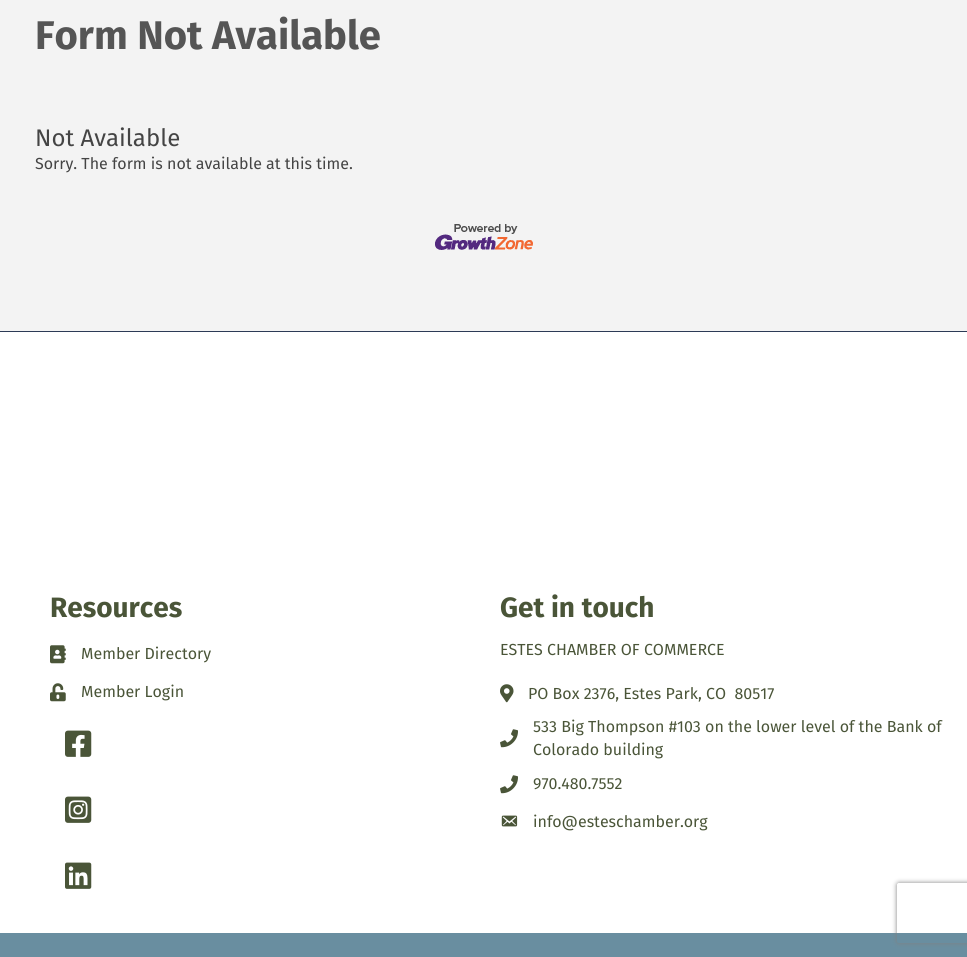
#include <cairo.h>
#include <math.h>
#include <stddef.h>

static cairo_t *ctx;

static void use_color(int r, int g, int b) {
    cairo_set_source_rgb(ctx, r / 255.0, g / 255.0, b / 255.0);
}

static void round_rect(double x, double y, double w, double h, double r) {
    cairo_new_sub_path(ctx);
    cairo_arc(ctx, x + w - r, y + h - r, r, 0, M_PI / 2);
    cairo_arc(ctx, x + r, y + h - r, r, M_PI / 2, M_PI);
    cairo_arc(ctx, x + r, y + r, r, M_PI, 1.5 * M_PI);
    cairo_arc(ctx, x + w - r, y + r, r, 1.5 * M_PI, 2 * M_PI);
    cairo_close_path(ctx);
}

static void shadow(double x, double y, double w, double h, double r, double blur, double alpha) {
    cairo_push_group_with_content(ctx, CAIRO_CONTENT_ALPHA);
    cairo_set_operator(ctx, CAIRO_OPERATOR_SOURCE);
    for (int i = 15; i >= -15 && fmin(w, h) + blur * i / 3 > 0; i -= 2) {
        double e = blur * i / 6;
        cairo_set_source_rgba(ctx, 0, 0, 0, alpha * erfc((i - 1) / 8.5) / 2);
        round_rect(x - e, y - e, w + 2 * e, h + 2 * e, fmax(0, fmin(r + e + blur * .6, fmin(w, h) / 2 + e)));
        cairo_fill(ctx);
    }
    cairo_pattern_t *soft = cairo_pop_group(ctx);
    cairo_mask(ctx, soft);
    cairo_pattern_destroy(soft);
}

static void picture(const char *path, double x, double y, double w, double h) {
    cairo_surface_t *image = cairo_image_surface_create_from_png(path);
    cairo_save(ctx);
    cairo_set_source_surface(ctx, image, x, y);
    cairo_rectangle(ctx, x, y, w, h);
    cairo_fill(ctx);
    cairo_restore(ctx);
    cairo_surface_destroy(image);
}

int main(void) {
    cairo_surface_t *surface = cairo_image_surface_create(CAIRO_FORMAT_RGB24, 967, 957);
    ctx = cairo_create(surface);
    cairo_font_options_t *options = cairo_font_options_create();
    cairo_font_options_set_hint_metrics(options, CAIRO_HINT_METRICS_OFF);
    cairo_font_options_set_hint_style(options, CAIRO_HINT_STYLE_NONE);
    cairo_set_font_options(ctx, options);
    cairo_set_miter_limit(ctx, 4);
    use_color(243, 243, 243);
    cairo_paint(ctx);
    cairo_select_font_face(ctx, "Fira Sans", CAIRO_FONT_SLANT_NORMAL, CAIRO_FONT_WEIGHT_BOLD);
    cairo_set_font_size(ctx, 40);
    use_color(85, 85, 85);
    cairo_move_to(ctx, 35, 49);
    cairo_show_text(ctx, "Form Not Available");
    cairo_select_font_face(ctx, "Fira Sans", CAIRO_FONT_SLANT_NORMAL, CAIRO_FONT_WEIGHT_NORMAL);
    cairo_set_font_size(ctx, 24);
    use_color(68, 68, 68);
    cairo_move_to(ctx, 35, 146);
    cairo_show_text(ctx, "Not Available");
    cairo_set_font_size(ctx, 16);
    cairo_move_to(ctx, 35, 169);
    cairo_show_text(ctx, "Sorry. The form is not available at this time.");
    picture("img1.png", 435, 224, 98, 26);
    use_color(255, 255, 255);
    cairo_rectangle(ctx, 0, 332, 967, 601);
    cairo_fill(ctx);
    use_color(44, 58, 86);
    cairo_rectangle(ctx, 0, 331, 967, 1);
    cairo_fill(ctx);
    cairo_select_font_face(ctx, "Fira Sans", CAIRO_FONT_SLANT_NORMAL, CAIRO_FONT_WEIGHT_BOLD);
    cairo_set_font_size(ctx, 28);
    use_color(74, 85, 56);
    cairo_move_to(ctx, 50, 617);
    cairo_show_text(ctx, "Resources");
    picture("img2.png", 50, 645, 16, 19);
    cairo_select_font_face(ctx, "Fira Sans", CAIRO_FONT_SLANT_NORMAL, CAIRO_FONT_WEIGHT_NORMAL);
    cairo_set_font_size(ctx, 16);
    cairo_move_to(ctx, 81, 659);
    cairo_show_text(ctx, "Member Directory");
    picture("img3.png", 50, 683, 16, 19);
    cairo_move_to(ctx, 81, 697);
    cairo_show_text(ctx, "Member Login");
    picture("img4.png", 65, 730, 27, 27);
    picture("img5.png", 65, 796, 27, 27);
    picture("img6.png", 65, 862, 27, 27);
    cairo_select_font_face(ctx, "Fira Sans", CAIRO_FONT_SLANT_NORMAL, CAIRO_FONT_WEIGHT_BOLD);
    cairo_set_font_size(ctx, 28);
    cairo_move_to(ctx, 500, 617);
    cairo_show_text(ctx, "Get in touch");
    cairo_select_font_face(ctx, "Fira Sans", CAIRO_FONT_SLANT_NORMAL, CAIRO_FONT_WEIGHT_NORMAL);
    cairo_set_font_size(ctx, 16);
    cairo_move_to(ctx, 500, 655);
    cairo_show_text(ctx, "ESTES CHAMBER OF COMMERCE");
    picture("img7.png", 500, 684, 14, 19);
    cairo_move_to(ctx, 528, 699);
    cairo_show_text(ctx, "PO Box 2376, Estes Park, CO  80517");
    picture("img8.png", 500, 729, 18, 19);
    cairo_move_to(ctx, 533, 732);
    cairo_show_text(ctx, "533 Big Thompson #103 on the lower level of the Bank of");
    cairo_move_to(ctx, 533, 755);
    cairo_show_text(ctx, "Colorado building");
    picture("img8.png", 500, 775, 18, 19);
    cairo_move_to(ctx, 533, 789);
    cairo_show_text(ctx, "970.480.7552");
    picture("img9.png", 501, 815, 17, 12);
    cairo_move_to(ctx, 533, 827);
    cairo_show_text(ctx, "info@esteschamber.org");
    use_color(105, 142, 160);
    cairo_rectangle(ctx, 0, 933, 967, 24);
    cairo_fill(ctx);
    cairo_save(ctx);
    cairo_set_fill_rule(ctx, CAIRO_FILL_RULE_EVEN_ODD);
    cairo_new_path(ctx);
    cairo_move_to(ctx, 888, 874);
    cairo_line_to(ctx, 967, 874);
    cairo_line_to(ctx, 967, 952);
    cairo_line_to(ctx, 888, 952);
    cairo_close_path(ctx);
    cairo_move_to(ctx, 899, 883);
    cairo_line_to(ctx, 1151, 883);
    cairo_curve_to(ctx, 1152, 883, 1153, 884, 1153, 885);
    cairo_line_to(ctx, 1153, 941);
    cairo_curve_to(ctx, 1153, 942, 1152, 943, 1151, 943);
    cairo_line_to(ctx, 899, 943);
    cairo_curve_to(ctx, 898, 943, 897, 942, 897, 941);
    cairo_line_to(ctx, 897, 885);
    cairo_curve_to(ctx, 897, 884, 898, 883, 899, 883);
    cairo_close_path(ctx);
    cairo_clip(ctx);
    use_color(128, 128, 128);
    shadow(897, 883, 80, 60, 2, 2.5, 1);
    cairo_restore(ctx);
    cairo_surface_write_to_png(surface, "result.png");
    cairo_font_options_destroy(options);
    cairo_destroy(ctx);
    cairo_surface_destroy(surface);
    return 0;
}
